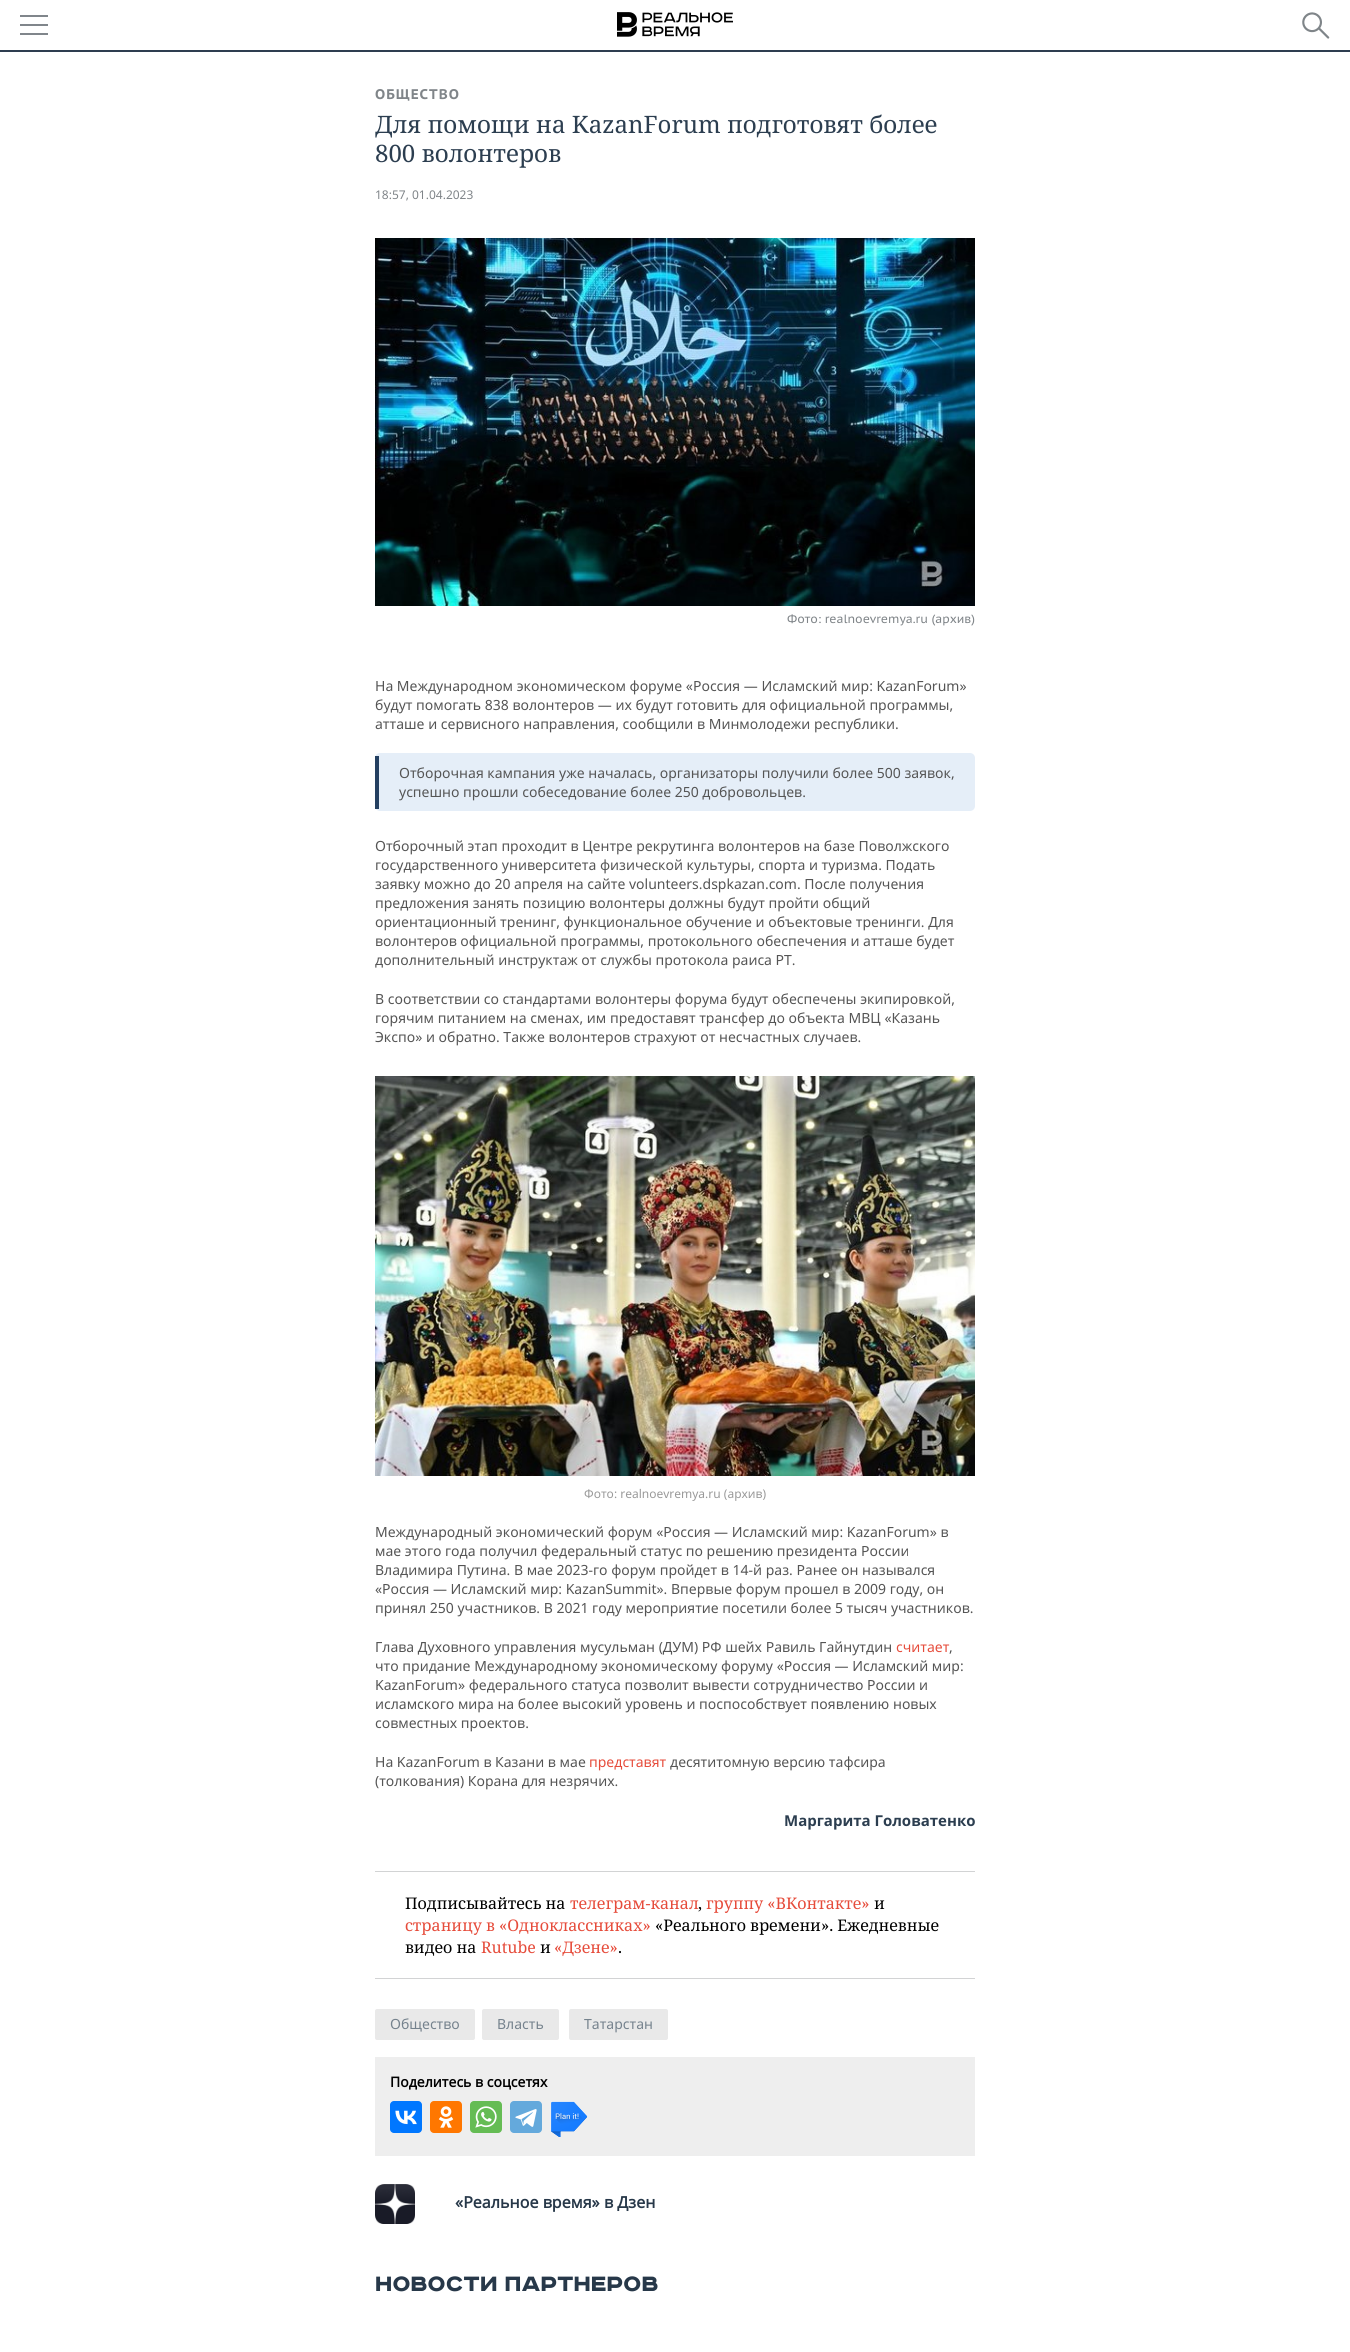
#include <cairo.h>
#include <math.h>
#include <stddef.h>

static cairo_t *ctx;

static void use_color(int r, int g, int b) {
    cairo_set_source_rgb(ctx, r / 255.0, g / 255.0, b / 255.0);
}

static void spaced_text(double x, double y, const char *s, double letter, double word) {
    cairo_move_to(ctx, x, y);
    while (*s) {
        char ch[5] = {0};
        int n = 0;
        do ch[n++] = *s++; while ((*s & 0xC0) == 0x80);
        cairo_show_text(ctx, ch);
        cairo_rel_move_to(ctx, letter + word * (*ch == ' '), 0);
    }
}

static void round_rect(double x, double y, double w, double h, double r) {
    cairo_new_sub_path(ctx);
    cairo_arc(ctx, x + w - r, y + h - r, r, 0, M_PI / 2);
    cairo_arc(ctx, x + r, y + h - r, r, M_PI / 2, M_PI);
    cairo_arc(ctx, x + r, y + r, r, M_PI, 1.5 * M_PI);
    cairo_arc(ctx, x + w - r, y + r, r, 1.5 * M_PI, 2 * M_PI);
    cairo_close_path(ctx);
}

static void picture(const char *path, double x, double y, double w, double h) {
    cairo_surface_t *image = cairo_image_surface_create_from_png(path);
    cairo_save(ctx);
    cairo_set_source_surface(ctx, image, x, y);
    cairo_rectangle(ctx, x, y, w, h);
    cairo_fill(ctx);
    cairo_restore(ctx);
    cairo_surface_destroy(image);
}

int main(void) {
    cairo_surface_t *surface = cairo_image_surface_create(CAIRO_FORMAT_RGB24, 1350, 2352);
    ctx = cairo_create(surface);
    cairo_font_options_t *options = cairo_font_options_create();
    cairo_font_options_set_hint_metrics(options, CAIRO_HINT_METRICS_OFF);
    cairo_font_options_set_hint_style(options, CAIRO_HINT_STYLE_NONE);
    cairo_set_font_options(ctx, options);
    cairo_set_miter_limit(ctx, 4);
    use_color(255, 255, 255);
    cairo_paint(ctx);
    use_color(46, 62, 80);
    cairo_rectangle(ctx, 0, 50, 1350, 2);
    cairo_fill(ctx);
    use_color(128, 134, 139);
    cairo_rectangle(ctx, 20, 15, 28, 2);
    cairo_fill(ctx);
    cairo_rectangle(ctx, 20, 24, 28, 2);
    cairo_fill(ctx);
    cairo_rectangle(ctx, 20, 33, 28, 2);
    cairo_fill(ctx);
    picture("img1.png", 617, 12, 116, 25);
    picture("img2.png", 1302, 12, 28, 27);
    cairo_select_font_face(ctx, "PT Sans Caption", CAIRO_FONT_SLANT_NORMAL, CAIRO_FONT_WEIGHT_BOLD);
    cairo_set_font_size(ctx, 14);
    use_color(128, 133, 137);
    spaced_text(375, 99, "ОБЩЕСТВО", 1, 0);
    cairo_select_font_face(ctx, "Noto Serif", CAIRO_FONT_SLANT_NORMAL, CAIRO_FONT_WEIGHT_NORMAL);
    cairo_set_font_size(ctx, 24);
    use_color(44, 62, 80);
    cairo_move_to(ctx, 375, 133);
    cairo_show_text(ctx, "Для помощи на KazanForum подготовят более");
    cairo_move_to(ctx, 375, 162);
    cairo_show_text(ctx, "800 волонтеров");
    cairo_select_font_face(ctx, "Noto Sans", CAIRO_FONT_SLANT_NORMAL, CAIRO_FONT_WEIGHT_NORMAL);
    cairo_set_font_size(ctx, 12);
    use_color(128, 133, 137);
    cairo_move_to(ctx, 375, 199);
    cairo_show_text(ctx, "18:57, 01.04.2023");
    picture("img3.png", 375, 238, 600, 368);
    cairo_select_font_face(ctx, "PT Sans Caption", CAIRO_FONT_SLANT_NORMAL, CAIRO_FONT_WEIGHT_NORMAL);
    cairo_move_to(ctx, 787, 623);
    cairo_show_text(ctx, "Фото: realnoevremya.ru (архив)");
    cairo_select_font_face(ctx, "Noto Sans", CAIRO_FONT_SLANT_NORMAL, CAIRO_FONT_WEIGHT_NORMAL);
    cairo_set_font_size(ctx, 14);
    use_color(85, 85, 85);
    cairo_move_to(ctx, 375, 691);
    cairo_show_text(ctx, "На Международном экономическом форуме «Россия — Исламский мир: KazanForum»");
    cairo_move_to(ctx, 375, 710);
    cairo_show_text(ctx, "будут помогать 838 волонтеров — их будут готовить для официальной программы,");
    cairo_move_to(ctx, 375, 729);
    cairo_show_text(ctx, "атташе и сервисного направления, сообщили в Минмолодежи республики.");
    use_color(229, 238, 248);
    round_rect(375, 753, 600, 58, 5);
    cairo_fill(ctx);
    use_color(36, 64, 97);
    cairo_rectangle(ctx, 375, 756, 4, 53);
    cairo_fill(ctx);
    use_color(85, 85, 85);
    cairo_move_to(ctx, 399, 778);
    cairo_show_text(ctx, "Отборочная кампания уже началась, организаторы получили более 500 заявок,");
    cairo_move_to(ctx, 399, 797);
    cairo_show_text(ctx, "успешно прошли собеседование более 250 добровольцев.");
    cairo_move_to(ctx, 375, 851);
    cairo_show_text(ctx, "Отборочный этап проходит в Центре рекрутинга волонтеров на базе Поволжского");
    cairo_move_to(ctx, 375, 870);
    cairo_show_text(ctx, "государственного университета физической культуры, спорта и туризма. Подать");
    cairo_move_to(ctx, 375, 889);
    cairo_show_text(ctx, "заявку можно до 20 апреля на сайте volunteers.dspkazan.com. После получения");
    cairo_move_to(ctx, 375, 908);
    cairo_show_text(ctx, "предложения занять позицию волонтеры должны будут пройти общий");
    cairo_move_to(ctx, 375, 927);
    cairo_show_text(ctx, "ориентационный тренинг, функциональное обучение и объектовые тренинги. Для");
    cairo_move_to(ctx, 375, 946);
    cairo_show_text(ctx, "волонтеров официальной программы, протокольного обеспечения и атташе будет");
    cairo_move_to(ctx, 375, 965);
    cairo_show_text(ctx, "дополнительный инструктаж от службы протокола раиса РТ.");
    cairo_move_to(ctx, 375, 1004);
    cairo_show_text(ctx, "В соответствии со стандартами волонтеры форума будут обеспечены экипировкой,");
    cairo_move_to(ctx, 375, 1023);
    cairo_show_text(ctx, "горячим питанием на сменах, им предоставят трансфер до объекта МВЦ «Казань");
    cairo_move_to(ctx, 375, 1042);
    cairo_show_text(ctx, "Экспо» и обратно. Также волонтеров страхуют от несчастных случаев.");
    picture("img4.png", 375, 1076, 600, 400);
    cairo_set_font_size(ctx, 12);
    use_color(153, 153, 153);
    cairo_move_to(ctx, 584, 1498);
    cairo_show_text(ctx, "Фото: realnoevremya.ru (архив)");
    cairo_set_font_size(ctx, 14);
    use_color(85, 85, 85);
    cairo_move_to(ctx, 375, 1537);
    cairo_show_text(ctx, "Международный экономический форум «Россия — Исламский мир: KazanForum» в");
    cairo_move_to(ctx, 375, 1556);
    cairo_show_text(ctx, "мае этого года получил федеральный статус по решению президента России");
    cairo_move_to(ctx, 375, 1575);
    cairo_show_text(ctx, "Владимира Путина. В мае 2023-го форум пройдет в 14-й раз. Ранее он назывался");
    cairo_move_to(ctx, 375, 1594);
    cairo_show_text(ctx, "«Россия — Исламский мир: KazanSummit». Впервые форум прошел в 2009 году, он");
    cairo_move_to(ctx, 375, 1613);
    cairo_show_text(ctx, "принял 250 участников. В 2021 году мероприятие посетили более 5 тысяч участников.");
    cairo_move_to(ctx, 375, 1652);
    cairo_show_text(ctx, "Глава Духовного управления мусульман (ДУМ) РФ шейх Равиль Гайнутдин");
    use_color(230, 76, 59);
    cairo_move_to(ctx, 896, 1652);
    cairo_show_text(ctx, "считает");
    use_color(85, 85, 85);
    cairo_move_to(ctx, 949, 1652);
    cairo_show_text(ctx, ",");
    cairo_move_to(ctx, 375, 1671);
    cairo_show_text(ctx, "что придание Международному экономическому форуму «Россия — Исламский мир:");
    cairo_move_to(ctx, 375, 1690);
    cairo_show_text(ctx, "KazanForum» федерального статуса позволит вывести сотрудничество России и");
    cairo_move_to(ctx, 375, 1709);
    cairo_show_text(ctx, "исламского мира на более высокий уровень и поспособствует появлению новых");
    cairo_move_to(ctx, 375, 1728);
    cairo_show_text(ctx, "совместных проектов.");
    cairo_move_to(ctx, 375, 1767);
    cairo_show_text(ctx, "На KazanForum в Казани в мае");
    use_color(230, 76, 59);
    cairo_move_to(ctx, 589, 1767);
    cairo_show_text(ctx, "представят");
    use_color(85, 85, 85);
    cairo_move_to(ctx, 670, 1767);
    cairo_show_text(ctx, "десятитомную версию тафсира");
    cairo_move_to(ctx, 375, 1786);
    cairo_show_text(ctx, "(толкования) Корана для незрячих.");
    cairo_select_font_face(ctx, "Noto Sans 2", CAIRO_FONT_SLANT_NORMAL, CAIRO_FONT_WEIGHT_BOLD);
    cairo_set_font_size(ctx, 15);
    use_color(44, 62, 80);
    cairo_move_to(ctx, 784, 1826);
    cairo_show_text(ctx, "Маргарита Головатенко");
    use_color(210, 211, 212);
    cairo_rectangle(ctx, 375, 1871, 600, 1);
    cairo_fill(ctx);
    cairo_rectangle(ctx, 375, 1978, 600, 1);
    cairo_fill(ctx);
    cairo_select_font_face(ctx, "Noto Serif", CAIRO_FONT_SLANT_NORMAL, CAIRO_FONT_WEIGHT_NORMAL);
    cairo_set_font_size(ctx, 16);
    use_color(0, 0, 0);
    cairo_move_to(ctx, 405, 1909);
    cairo_show_text(ctx, "Подписывайтесь на");
    use_color(230, 76, 59);
    cairo_move_to(ctx, 570, 1909);
    cairo_show_text(ctx, "телеграм-канал");
    use_color(0, 0, 0);
    cairo_move_to(ctx, 698, 1909);
    cairo_show_text(ctx, ",");
    use_color(230, 76, 59);
    cairo_move_to(ctx, 706, 1909);
    cairo_show_text(ctx, "группу «ВКонтакте»");
    use_color(0, 0, 0);
    cairo_move_to(ctx, 874, 1909);
    cairo_show_text(ctx, "и");
    use_color(230, 76, 59);
    cairo_move_to(ctx, 405, 1931);
    cairo_show_text(ctx, "страницу в «Одноклассниках»");
    use_color(0, 0, 0);
    cairo_move_to(ctx, 655, 1931);
    cairo_show_text(ctx, "«Реального времени». Ежедневные");
    cairo_move_to(ctx, 405, 1953);
    cairo_show_text(ctx, "видео на");
    use_color(230, 76, 59);
    cairo_move_to(ctx, 481, 1953);
    cairo_show_text(ctx, "Rutube");
    use_color(0, 0, 0);
    cairo_move_to(ctx, 540, 1953);
    cairo_show_text(ctx, "и");
    use_color(230, 76, 59);
    cairo_move_to(ctx, 554, 1953);
    cairo_show_text(ctx, "«Дзене»");
    use_color(0, 0, 0);
    cairo_move_to(ctx, 618, 1953);
    cairo_show_text(ctx, ".");
    use_color(233, 233, 233);
    round_rect(375, 2009, 100, 31, 2);
    cairo_fill(ctx);
    cairo_select_font_face(ctx, "Noto Sans", CAIRO_FONT_SLANT_NORMAL, CAIRO_FONT_WEIGHT_NORMAL);
    cairo_set_font_size(ctx, 14);
    use_color(117, 130, 141);
    cairo_move_to(ctx, 390, 2029);
    cairo_show_text(ctx, "Общество");
    use_color(233, 233, 233);
    round_rect(482, 2009, 77, 31, 2);
    cairo_fill(ctx);
    use_color(117, 130, 141);
    cairo_move_to(ctx, 497, 2029);
    cairo_show_text(ctx, "Власть");
    use_color(233, 233, 233);
    round_rect(569, 2009, 99, 31, 2);
    cairo_fill(ctx);
    use_color(117, 130, 141);
    cairo_move_to(ctx, 584, 2029);
    cairo_show_text(ctx, "Татарстан");
    use_color(238, 238, 238);
    cairo_rectangle(ctx, 375, 2057, 600, 99);
    cairo_fill(ctx);
    cairo_select_font_face(ctx, "Noto Sans", CAIRO_FONT_SLANT_NORMAL, CAIRO_FONT_WEIGHT_BOLD);
    use_color(0, 0, 0);
    cairo_move_to(ctx, 390, 2087);
    cairo_show_text(ctx, "Поделитесь в соцсетях");
    use_color(0, 119, 255);
    round_rect(390, 2101, 32, 32, 4);
    cairo_fill(ctx);
    picture("img5.png", 395, 2110, 22, 15);
    use_color(255, 119, 0);
    round_rect(430, 2101, 32, 32, 4);
    cairo_fill(ctx);
    picture("img6.png", 438, 2106, 16, 22);
    use_color(101, 188, 84);
    round_rect(470, 2101, 32, 32, 4);
    cairo_fill(ctx);
    picture("img7.png", 475, 2106, 22, 22);
    use_color(100, 169, 220);
    round_rect(510, 2101, 32, 32, 4);
    cairo_fill(ctx);
    picture("img8.png", 515, 2109, 22, 18);
    picture("img9.png", 551, 2101, 37, 36);
    picture("img10.png", 375, 2184, 40, 40);
    cairo_set_font_size(ctx, 16);
    use_color(39, 56, 73);
    cairo_move_to(ctx, 455, 2208);
    cairo_show_text(ctx, "«Реальное время» в Дзен");
    cairo_select_font_face(ctx, "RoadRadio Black", CAIRO_FONT_SLANT_NORMAL, CAIRO_FONT_WEIGHT_NORMAL);
    cairo_set_font_size(ctx, 26);
    cairo_move_to(ctx, 375, 2291);
    cairo_show_text(ctx, "НОВОСТИ ПАРТНЕРОВ");
    cairo_surface_write_to_png(surface, "result.png");
    cairo_font_options_destroy(options);
    cairo_destroy(ctx);
    cairo_surface_destroy(surface);
    return 0;
}
